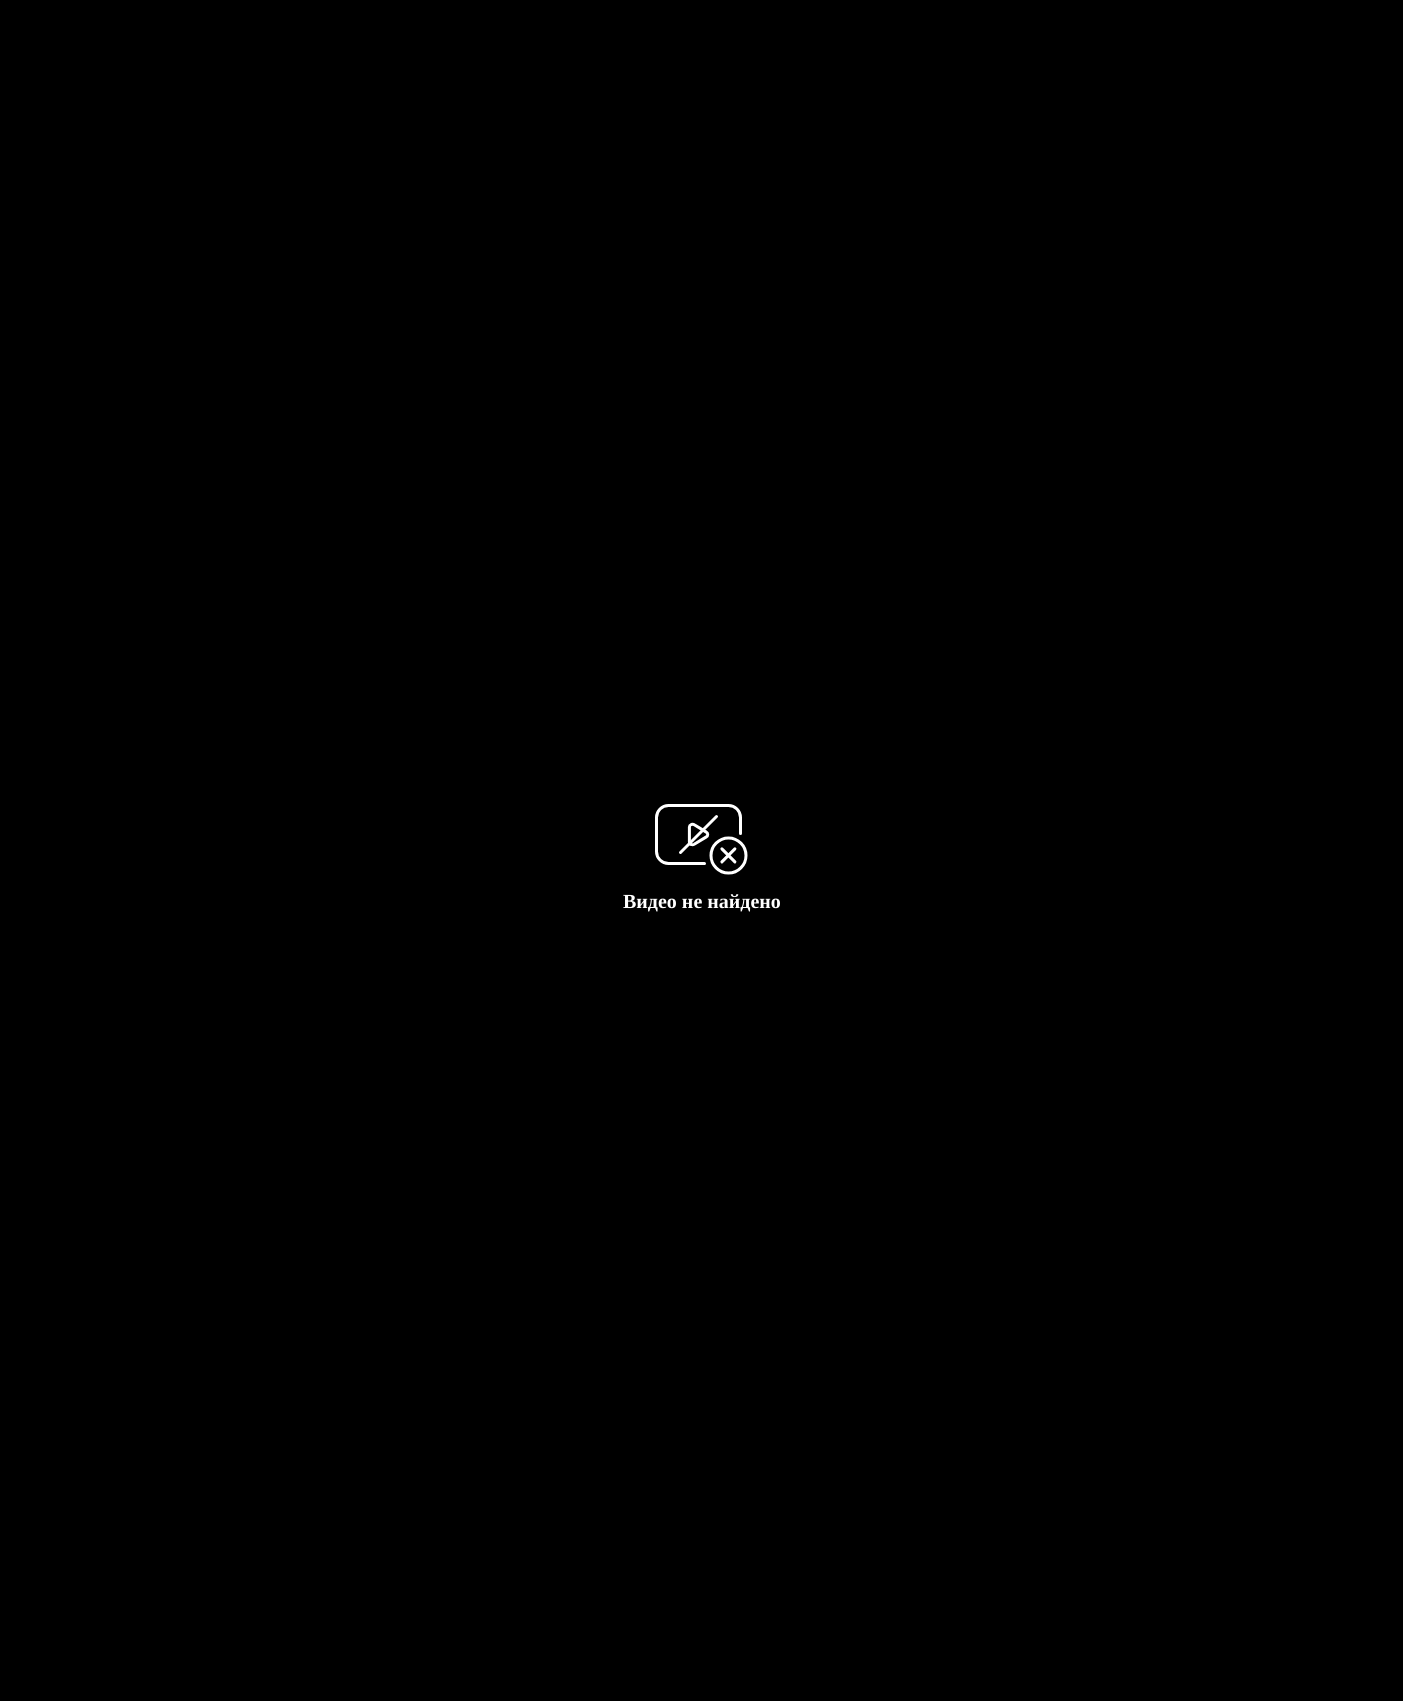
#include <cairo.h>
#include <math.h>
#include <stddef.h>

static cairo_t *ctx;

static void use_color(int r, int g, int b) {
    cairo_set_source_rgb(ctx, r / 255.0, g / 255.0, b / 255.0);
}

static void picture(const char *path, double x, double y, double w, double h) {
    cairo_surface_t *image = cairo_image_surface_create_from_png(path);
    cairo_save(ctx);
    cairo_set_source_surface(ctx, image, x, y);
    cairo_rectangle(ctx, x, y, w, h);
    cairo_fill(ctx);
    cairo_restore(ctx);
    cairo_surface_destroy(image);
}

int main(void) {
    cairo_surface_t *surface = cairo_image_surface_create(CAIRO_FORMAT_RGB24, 1403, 1701);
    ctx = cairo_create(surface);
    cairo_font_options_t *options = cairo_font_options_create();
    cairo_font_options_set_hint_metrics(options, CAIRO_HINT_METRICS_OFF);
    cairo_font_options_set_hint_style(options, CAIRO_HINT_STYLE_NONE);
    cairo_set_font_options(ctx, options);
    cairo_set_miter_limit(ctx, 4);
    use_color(0, 0, 0);
    cairo_paint(ctx);
    picture("img1.png", 655, 804, 93, 71);
    cairo_select_font_face(ctx, "Liberation Serif", CAIRO_FONT_SLANT_NORMAL, CAIRO_FONT_WEIGHT_BOLD);
    cairo_set_font_size(ctx, 20);
    use_color(255, 255, 255);
    cairo_move_to(ctx, 623, 908);
    cairo_show_text(ctx, "Видео не найдено");
    cairo_surface_write_to_png(surface, "result.png");
    cairo_font_options_destroy(options);
    cairo_destroy(ctx);
    cairo_surface_destroy(surface);
    return 0;
}
